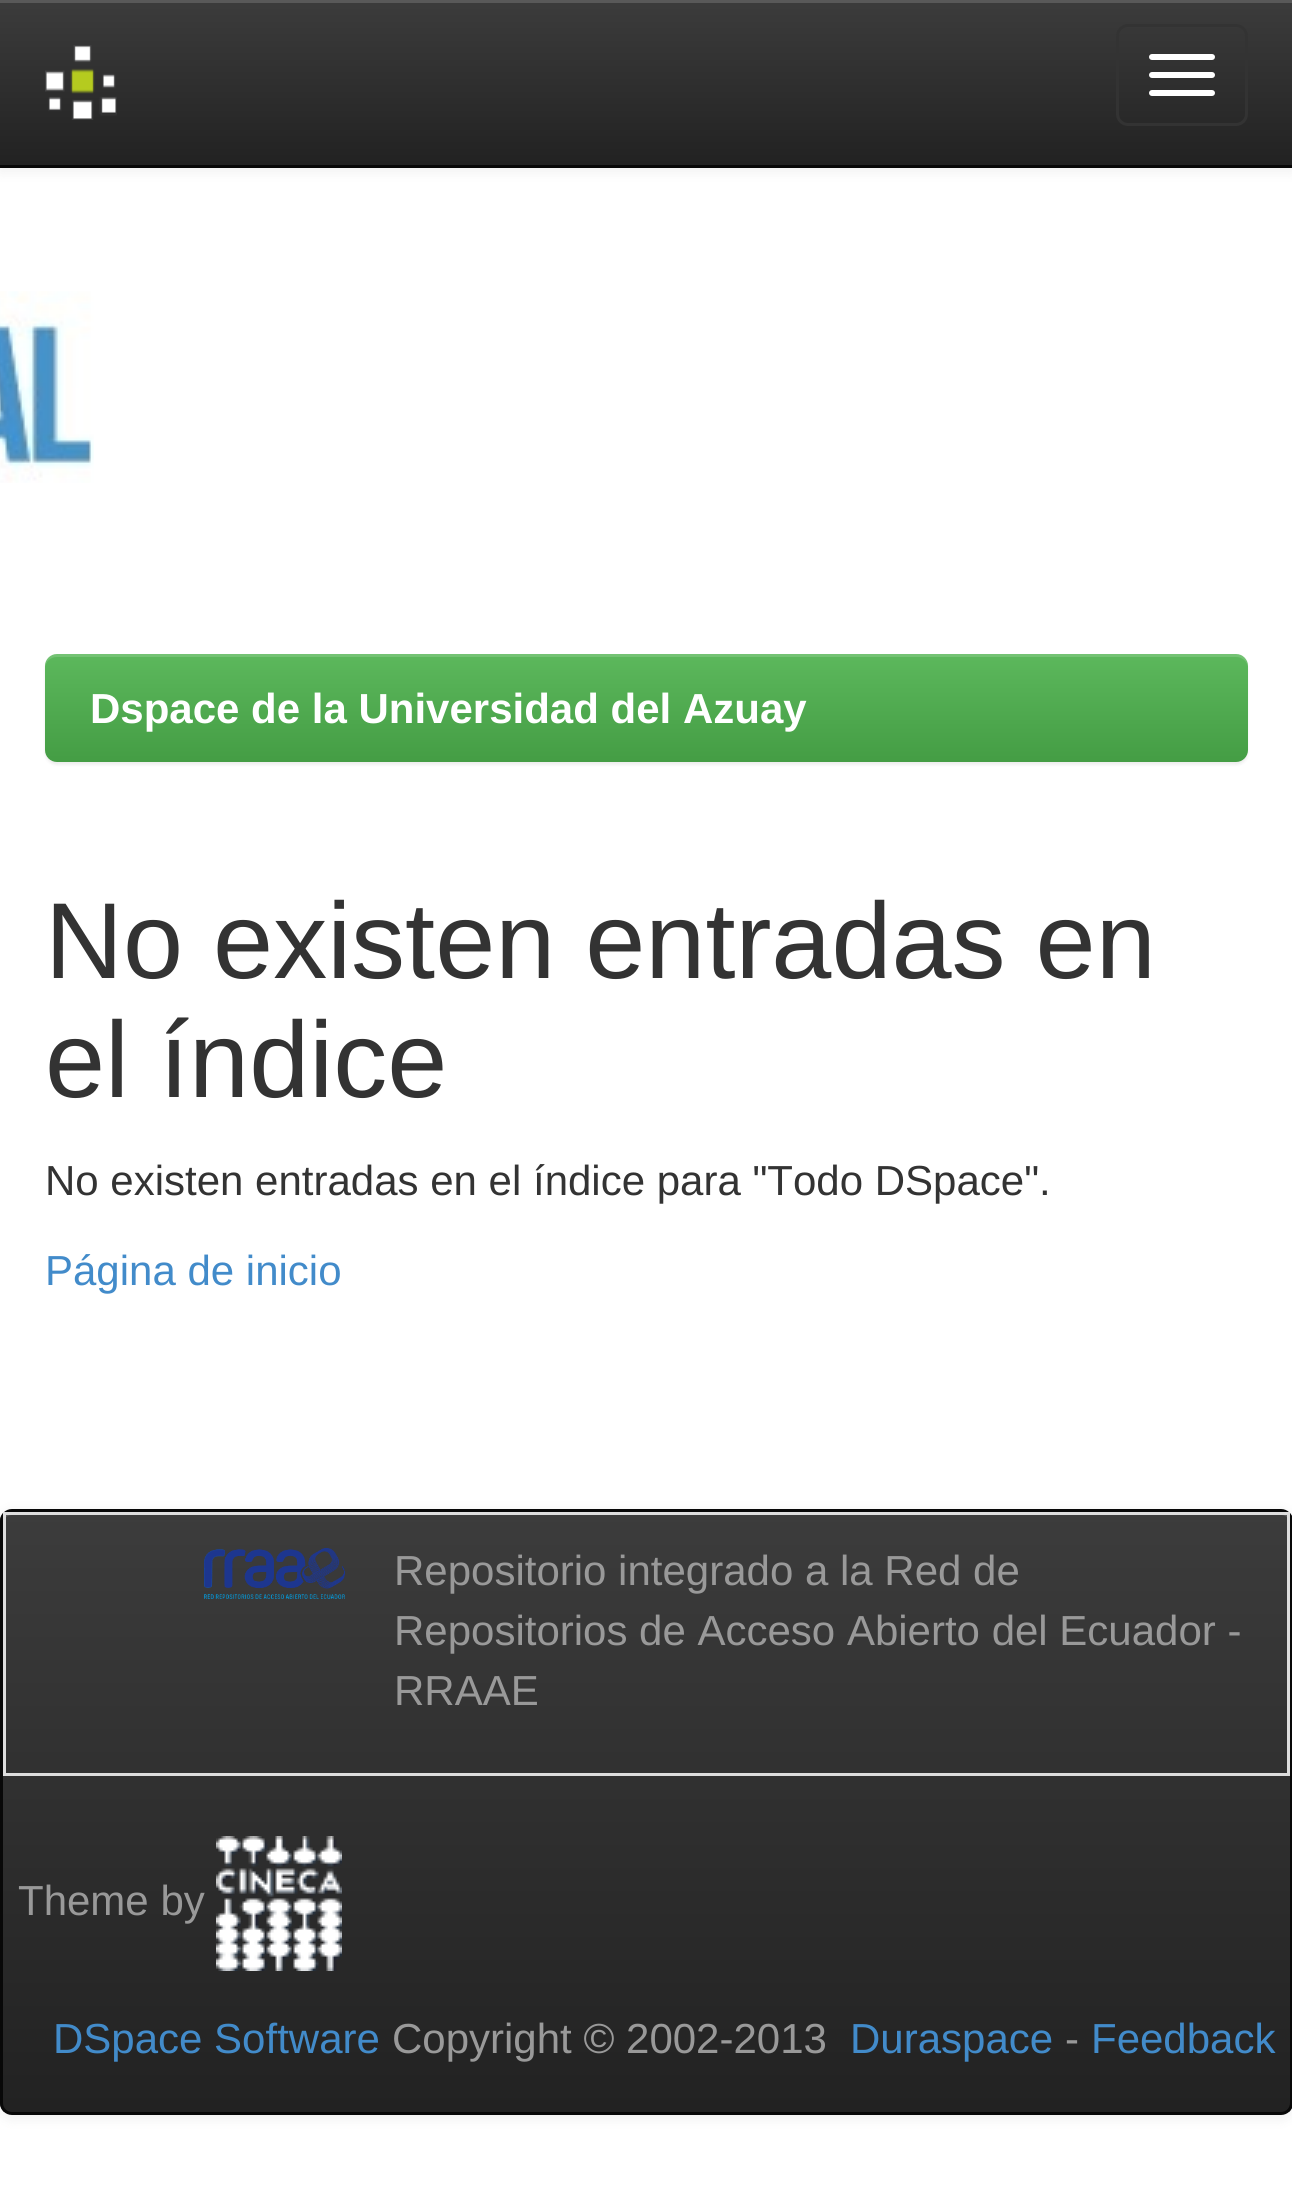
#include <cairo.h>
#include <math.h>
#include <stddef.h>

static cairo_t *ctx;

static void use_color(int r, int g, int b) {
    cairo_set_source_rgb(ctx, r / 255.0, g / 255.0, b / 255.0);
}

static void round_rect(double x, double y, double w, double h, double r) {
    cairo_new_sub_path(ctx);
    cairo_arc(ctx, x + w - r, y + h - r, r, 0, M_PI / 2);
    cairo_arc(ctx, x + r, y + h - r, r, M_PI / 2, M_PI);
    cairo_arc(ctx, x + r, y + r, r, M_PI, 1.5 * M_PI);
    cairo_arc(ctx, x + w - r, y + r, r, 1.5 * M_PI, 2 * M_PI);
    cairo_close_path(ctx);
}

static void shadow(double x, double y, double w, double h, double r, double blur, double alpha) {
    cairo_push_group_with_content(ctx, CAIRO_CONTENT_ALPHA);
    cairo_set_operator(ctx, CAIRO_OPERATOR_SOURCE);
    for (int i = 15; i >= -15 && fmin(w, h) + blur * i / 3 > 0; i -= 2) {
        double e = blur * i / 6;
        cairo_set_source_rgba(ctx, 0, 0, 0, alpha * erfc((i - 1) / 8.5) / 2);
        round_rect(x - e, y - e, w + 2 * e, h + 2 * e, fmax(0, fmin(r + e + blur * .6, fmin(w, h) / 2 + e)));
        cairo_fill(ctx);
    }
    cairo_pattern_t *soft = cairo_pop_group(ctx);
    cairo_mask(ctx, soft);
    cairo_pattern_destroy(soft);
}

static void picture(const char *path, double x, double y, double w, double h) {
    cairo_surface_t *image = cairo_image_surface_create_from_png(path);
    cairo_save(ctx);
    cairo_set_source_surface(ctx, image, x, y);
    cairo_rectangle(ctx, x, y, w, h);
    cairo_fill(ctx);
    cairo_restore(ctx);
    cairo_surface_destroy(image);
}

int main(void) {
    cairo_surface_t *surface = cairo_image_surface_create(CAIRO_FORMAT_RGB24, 1292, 2209);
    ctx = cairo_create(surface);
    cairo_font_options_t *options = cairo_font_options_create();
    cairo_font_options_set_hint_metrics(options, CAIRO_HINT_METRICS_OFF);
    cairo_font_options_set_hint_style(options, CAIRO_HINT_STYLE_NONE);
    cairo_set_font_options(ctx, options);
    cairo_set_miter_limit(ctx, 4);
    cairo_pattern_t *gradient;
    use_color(255, 255, 255);
    cairo_paint(ctx);
    use_color(0, 0, 0);
    shadow(0, 3, 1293, 168, 0, 7.5, 0.07);
    gradient = cairo_pattern_create_linear(647, 0, 647, 165);
    cairo_pattern_add_color_stop_rgba(gradient, 0, 0.235, 0.235, 0.235, 1);
    cairo_pattern_add_color_stop_rgba(gradient, 1, 0.133, 0.133, 0.133, 1);
    cairo_set_source(ctx, gradient);
    cairo_pattern_destroy(gradient);
    cairo_rectangle(ctx, 0, 3, 1292, 162);
    cairo_fill(ctx);
    use_color(89, 89, 89);
    cairo_rectangle(ctx, 0, 0, 1292, 3);
    cairo_fill(ctx);
    use_color(8, 8, 8);
    cairo_rectangle(ctx, 0, 165, 1292, 3);
    cairo_fill(ctx);
    picture("img1.png", 45, 45, 72, 75);
    round_rect(1117.5, 25.5, 129, 99, 10.5);
    use_color(51, 51, 51);
    cairo_set_line_width(ctx, 3);
    cairo_stroke(ctx);
    use_color(255, 255, 255);
    round_rect(1149, 54, 66, 6, 3);
    cairo_fill(ctx);
    round_rect(1149, 72, 66, 6, 3);
    cairo_fill(ctx);
    round_rect(1149, 90, 66, 6, 3);
    cairo_fill(ctx);
    picture("img2.png", 0, 291, 94, 192);
    use_color(0, 0, 0);
    shadow(45, 657, 1203, 108, 12, 1.5, 0.07);
    gradient = cairo_pattern_create_linear(647, 654, 647, 762);
    cairo_pattern_add_color_stop_rgba(gradient, 0, 0.361, 0.722, 0.361, 1);
    cairo_pattern_add_color_stop_rgba(gradient, 1, 0.267, 0.616, 0.267, 1);
    cairo_set_source(ctx, gradient);
    cairo_pattern_destroy(gradient);
    round_rect(45, 654, 1203, 108, 12);
    cairo_fill(ctx);
    cairo_set_source_rgba(ctx, 1, 1, 1, 0.15);
    cairo_new_path(ctx);
    cairo_move_to(ctx, 57, 657);
    cairo_line_to(ctx, 1236, 657);
    cairo_curve_to(ctx, 1243, 657, 1248, 662, 1248, 669);
    cairo_curve_to(ctx, 1248, 661, 1245, 654, 1236, 654);
    cairo_line_to(ctx, 57, 654);
    cairo_curve_to(ctx, 48, 654, 45, 661, 45, 669);
    cairo_curve_to(ctx, 45, 662, 50, 657, 57, 657);
    cairo_close_path(ctx);
    cairo_fill(ctx);
    cairo_select_font_face(ctx, "Liberation Sans", CAIRO_FONT_SLANT_NORMAL, CAIRO_FONT_WEIGHT_BOLD);
    cairo_set_font_size(ctx, 42);
    use_color(255, 255, 255);
    cairo_move_to(ctx, 90, 723);
    cairo_show_text(ctx, "Dspace de la Universidad del Azuay");
    cairo_select_font_face(ctx, "Liberation Sans", CAIRO_FONT_SLANT_NORMAL, CAIRO_FONT_WEIGHT_NORMAL);
    cairo_set_font_size(ctx, 108);
    use_color(51, 51, 51);
    cairo_move_to(ctx, 45, 978);
    cairo_show_text(ctx, "No existen entradas en");
    cairo_move_to(ctx, 45, 1097);
    cairo_show_text(ctx, "el índice");
    cairo_set_font_size(ctx, 42);
    cairo_move_to(ctx, 45, 1195);
    cairo_show_text(ctx, "No existen entradas en el índice para \"Todo DSpace\".");
    use_color(66, 139, 202);
    cairo_move_to(ctx, 45, 1285);
    cairo_show_text(ctx, "Página de inicio");
    use_color(0, 0, 0);
    shadow(0, 1512, 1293, 606, 12, 7.5, 0.07);
    cairo_save(ctx);
    round_rect(0, 1509, 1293, 606, 12);
    cairo_clip(ctx);
    gradient = cairo_pattern_create_linear(647, 1512, 647, 2112);
    cairo_pattern_add_color_stop_rgba(gradient, 0, 0.235, 0.235, 0.235, 1);
    cairo_pattern_add_color_stop_rgba(gradient, 1, 0.133, 0.133, 0.133, 1);
    cairo_set_source(ctx, gradient);
    cairo_pattern_destroy(gradient);
    cairo_rectangle(ctx, 0, 1513, 1292, 599);
    cairo_fill(ctx);
    cairo_restore(ctx);
    use_color(89, 89, 89);
    cairo_new_path(ctx);
    cairo_move_to(ctx, 12, 1515);
    cairo_line_to(ctx, 1281, 1515);
    cairo_curve_to(ctx, 1286, 1515, 1290, 1519, 1290, 1524);
    cairo_curve_to(ctx, 1290, 1518, 1288, 1512, 1281, 1512);
    cairo_line_to(ctx, 12, 1512);
    cairo_curve_to(ctx, 5, 1512, 3, 1518, 3, 1524);
    cairo_curve_to(ctx, 3, 1519, 7, 1515, 12, 1515);
    cairo_close_path(ctx);
    cairo_fill(ctx);
    round_rect(1.5, 1510.5, 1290, 603, 10.5);
    use_color(8, 8, 8);
    cairo_stroke(ctx);
    use_color(221, 221, 221);
    cairo_rectangle(ctx, 3, 1512, 1287, 3);
    cairo_fill(ctx);
    cairo_rectangle(ctx, 1287, 1512, 3, 264);
    cairo_fill(ctx);
    cairo_rectangle(ctx, 3, 1773, 1287, 3);
    cairo_fill(ctx);
    cairo_rectangle(ctx, 3, 1512, 3, 264);
    cairo_fill(ctx);
    picture("img3.png", 204, 1548, 141, 51);
    use_color(153, 153, 153);
    cairo_move_to(ctx, 394, 1585);
    cairo_show_text(ctx, "Repositorio integrado a la Red de");
    cairo_move_to(ctx, 394, 1645);
    cairo_show_text(ctx, "Repositorios de Acceso Abierto del Ecuador -");
    cairo_move_to(ctx, 394, 1705);
    cairo_show_text(ctx, "RRAAE");
    cairo_move_to(ctx, 18, 1915);
    cairo_show_text(ctx, "Theme by");
    picture("img4.png", 216, 1836, 126, 135);
    use_color(66, 139, 202);
    cairo_move_to(ctx, 53, 2053);
    cairo_show_text(ctx, "DSpace Software");
    use_color(153, 153, 153);
    cairo_move_to(ctx, 392, 2053);
    cairo_show_text(ctx, "Copyright © 2002-2013");
    use_color(66, 139, 202);
    cairo_move_to(ctx, 850, 2053);
    cairo_show_text(ctx, "Duraspace");
    use_color(153, 153, 153);
    cairo_move_to(ctx, 1065, 2053);
    cairo_show_text(ctx, "-");
    use_color(66, 139, 202);
    cairo_move_to(ctx, 1091, 2053);
    cairo_show_text(ctx, "Feedback");
    cairo_surface_write_to_png(surface, "result.png");
    cairo_font_options_destroy(options);
    cairo_destroy(ctx);
    cairo_surface_destroy(surface);
    return 0;
}
